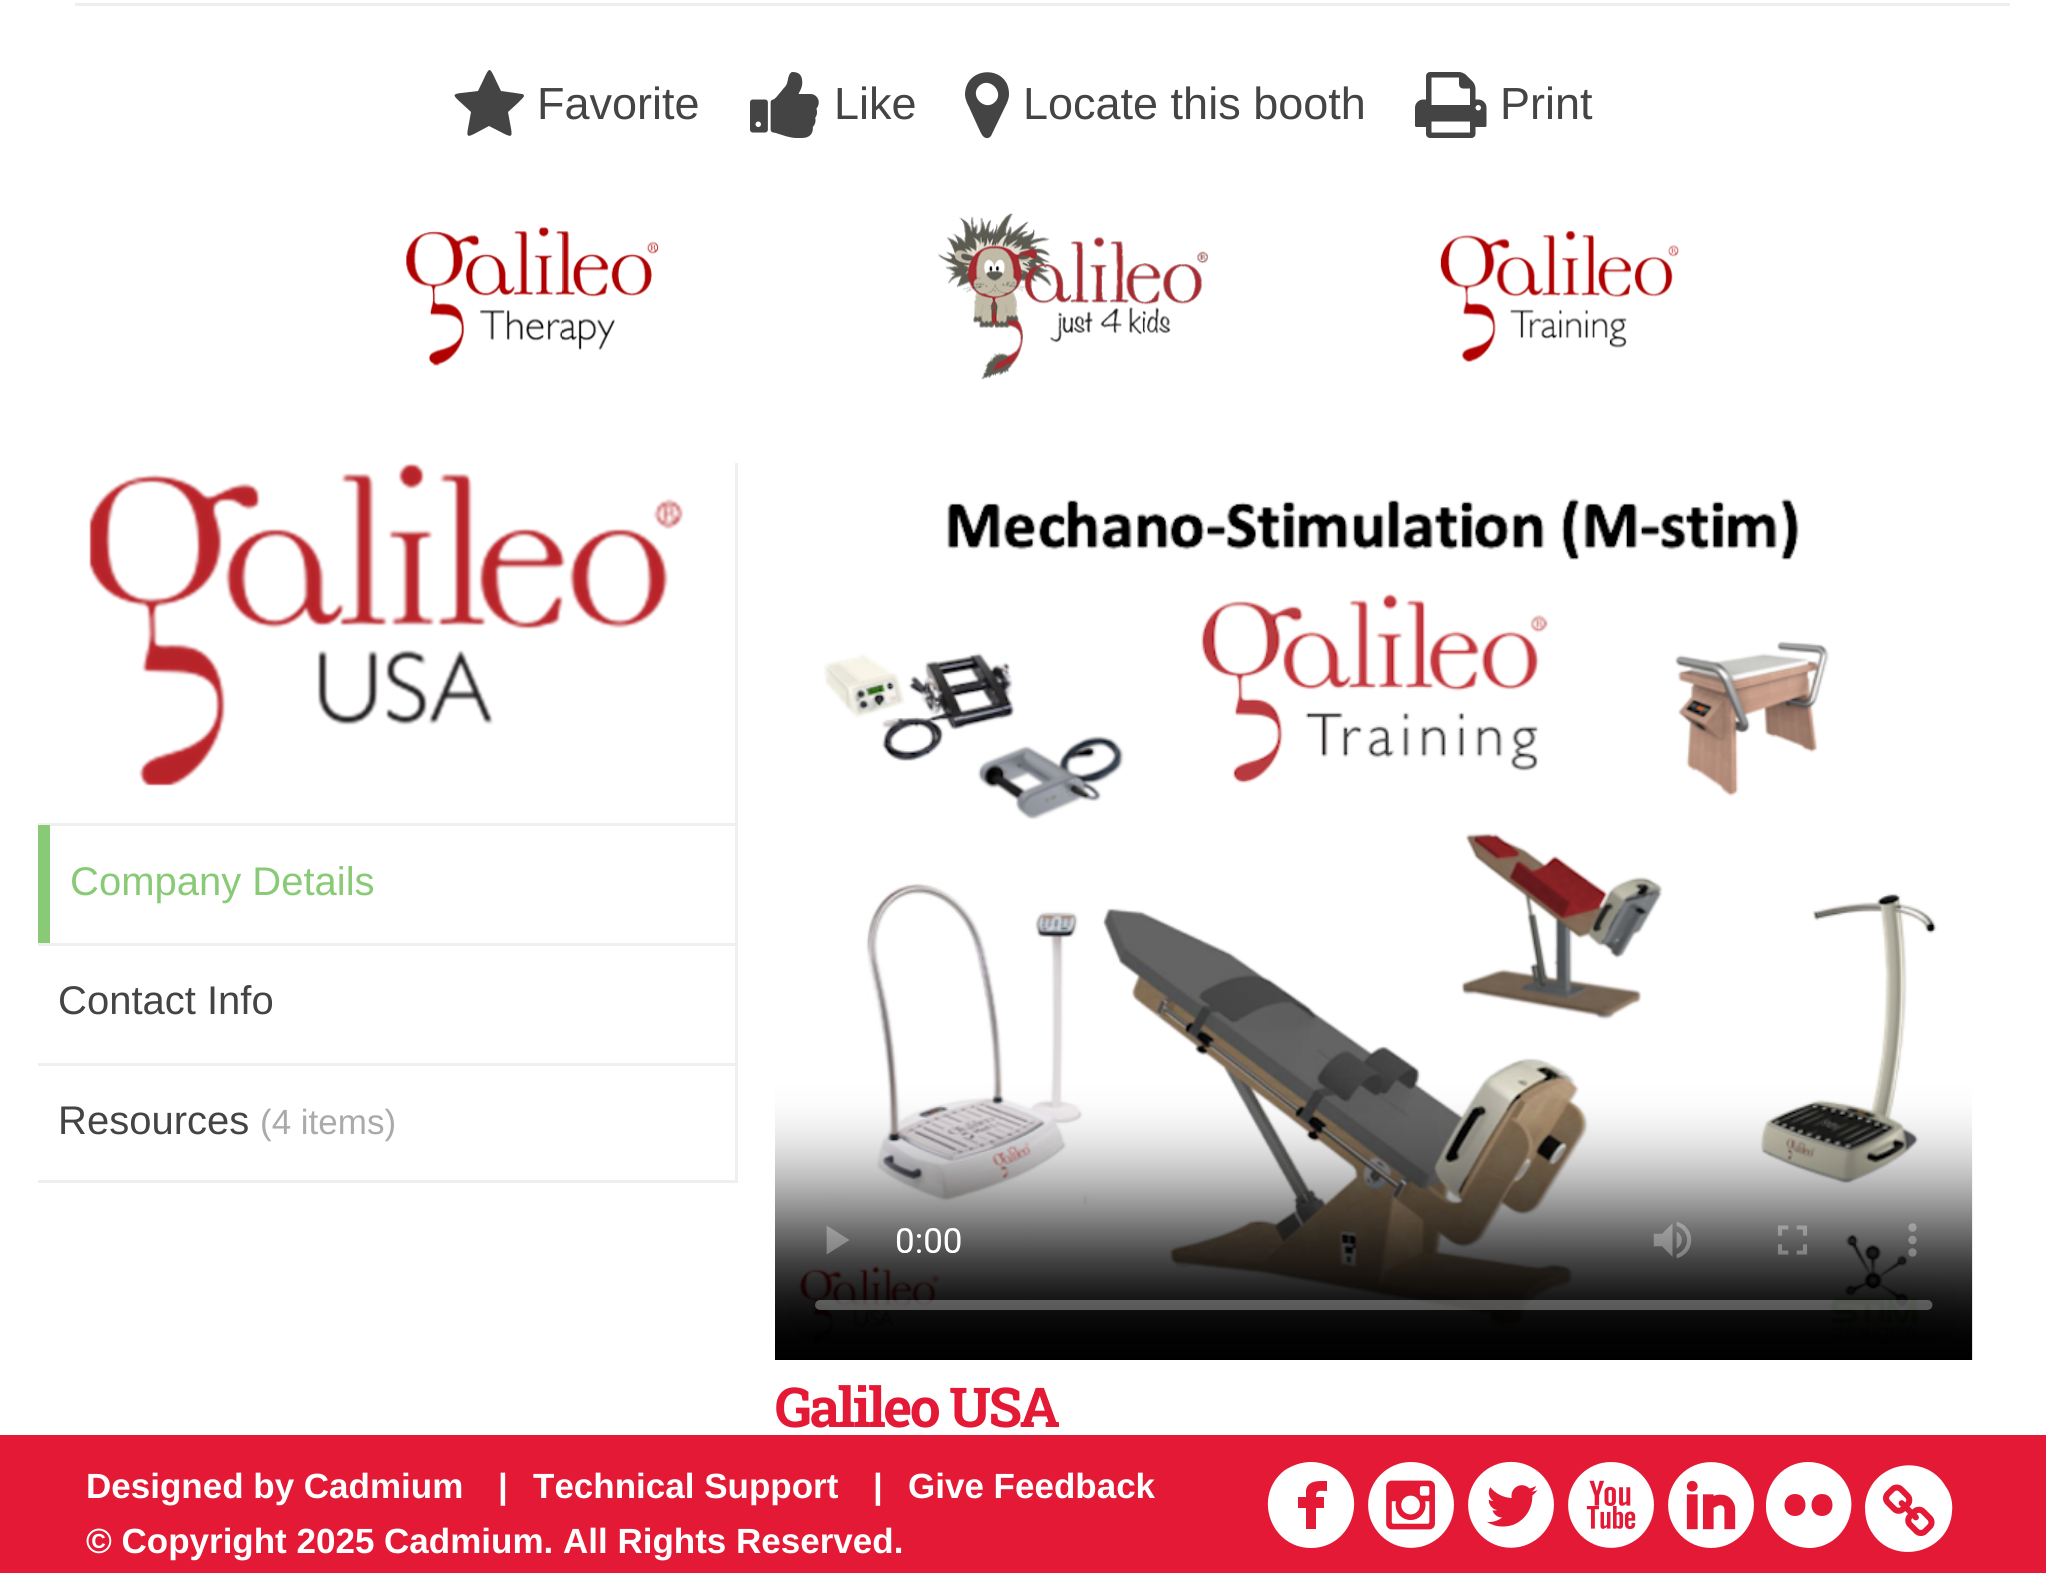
#include <cairo.h>
#include <math.h>
#include <stddef.h>

static cairo_t *ctx;

static void use_color(int r, int g, int b) {
    cairo_set_source_rgb(ctx, r / 255.0, g / 255.0, b / 255.0);
}

static void spaced_text(double x, double y, const char *s, double letter, double word) {
    cairo_move_to(ctx, x, y);
    while (*s) {
        char ch[5] = {0};
        int n = 0;
        do ch[n++] = *s++; while ((*s & 0xC0) == 0x80);
        cairo_show_text(ctx, ch);
        cairo_rel_move_to(ctx, letter + word * (*ch == ' '), 0);
    }
}

static void picture(const char *path, double x, double y, double w, double h) {
    cairo_surface_t *image = cairo_image_surface_create_from_png(path);
    cairo_save(ctx);
    cairo_set_source_surface(ctx, image, x, y);
    cairo_rectangle(ctx, x, y, w, h);
    cairo_fill(ctx);
    cairo_restore(ctx);
    cairo_surface_destroy(image);
}

int main(void) {
    cairo_surface_t *surface = cairo_image_surface_create(CAIRO_FORMAT_RGB24, 2046, 1573);
    ctx = cairo_create(surface);
    cairo_font_options_t *options = cairo_font_options_create();
    cairo_font_options_set_hint_metrics(options, CAIRO_HINT_METRICS_OFF);
    cairo_font_options_set_hint_style(options, CAIRO_HINT_STYLE_NONE);
    cairo_set_font_options(ctx, options);
    cairo_set_miter_limit(ctx, 4);
    use_color(255, 255, 255);
    cairo_paint(ctx);
    use_color(238, 238, 238);
    cairo_rectangle(ctx, 75, 3, 1935, 3);
    cairo_fill(ctx);
    use_color(68, 68, 68);
    cairo_new_path(ctx);
    cairo_move_to(ctx, 524, 96);
    cairo_curve_to(ctx, 524, 98, 510, 110, 508, 112);
    cairo_curve_to(ctx, 513, 142, 517, 140, 489, 126);
    cairo_curve_to(ctx, 462, 140, 466, 142, 471, 112);
    cairo_curve_to(ctx, 449, 91, 447, 95, 478, 91);
    cairo_curve_to(ctx, 492, 63, 487, 63, 501, 91);
    cairo_line_to(ctx, 522, 94);
    cairo_curve_to(ctx, 523, 94, 524, 95, 524, 96);
    cairo_close_path(ctx);
    cairo_fill(ctx);
    cairo_select_font_face(ctx, "Liberation Sans", CAIRO_FONT_SLANT_NORMAL, CAIRO_FONT_WEIGHT_NORMAL);
    cairo_set_font_size(ctx, 45);
    cairo_move_to(ctx, 537, 119);
    cairo_show_text(ctx, "Favorite");
    picture("img1.png", 750, 72, 69, 66);
    cairo_move_to(ctx, 834, 119);
    cairo_show_text(ctx, "Like");
    cairo_new_path(ctx);
    cairo_move_to(ctx, 995, 102);
    cairo_curve_to(ctx, 1005, 92, 989, 76, 979, 86);
    cairo_curve_to(ctx, 969, 96, 985, 112, 995, 102);
    cairo_close_path(ctx);
    cairo_move_to(ctx, 1009, 94);
    cairo_curve_to(ctx, 1009, 99, 1007, 103, 1005, 107);
    cairo_line_to(ctx, 991, 136);
    cairo_curve_to(ctx, 990, 137, 989, 138, 988, 138);
    cairo_curve_to(ctx, 983, 139, 981, 133, 979, 129);
    cairo_line_to(ctx, 969, 107);
    cairo_curve_to(ctx, 967, 103, 965, 99, 965, 94);
    cairo_curve_to(ctx, 966, 65, 1009, 65, 1009, 94);
    cairo_close_path(ctx);
    cairo_fill(ctx);
    cairo_move_to(ctx, 1023, 119);
    cairo_show_text(ctx, "Locate this booth");
    picture("img2.png", 1415, 72, 72, 66);
    cairo_move_to(ctx, 1500, 119);
    cairo_show_text(ctx, "Print");
    picture("img3.png", 406, 213, 1274, 167);
    use_color(239, 239, 239);
    cairo_rectangle(ctx, 735, 463, 3, 720);
    cairo_fill(ctx);
    cairo_rectangle(ctx, 38, 823, 697, 3);
    cairo_fill(ctx);
    picture("img4.png", 89, 463, 595, 323);
    cairo_rectangle(ctx, 38, 943, 697, 3);
    cairo_fill(ctx);
    use_color(137, 202, 119);
    cairo_rectangle(ctx, 38, 825, 12, 118);
    cairo_fill(ctx);
    cairo_set_font_size(ctx, 40);
    cairo_move_to(ctx, 70, 895);
    cairo_show_text(ctx, "Company Details");
    use_color(239, 239, 239);
    cairo_rectangle(ctx, 38, 1063, 697, 3);
    cairo_fill(ctx);
    use_color(68, 68, 68);
    cairo_move_to(ctx, 58, 1014);
    cairo_show_text(ctx, "Contact Info");
    use_color(239, 239, 239);
    cairo_rectangle(ctx, 38, 1180, 697, 3);
    cairo_fill(ctx);
    use_color(68, 68, 68);
    cairo_move_to(ctx, 58, 1134);
    cairo_show_text(ctx, "Resources");
    cairo_set_font_size(ctx, 35);
    use_color(170, 170, 170);
    cairo_move_to(ctx, 260, 1134);
    cairo_show_text(ctx, "(4 items)");
    picture("img5.png", 775, 498, 1198, 862);
    cairo_select_font_face(ctx, "Roboto Slab", CAIRO_FONT_SLANT_NORMAL, CAIRO_FONT_WEIGHT_BOLD);
    cairo_set_font_size(ctx, 55);
    use_color(227, 25, 54);
    spaced_text(775, 1427, "Galileo USA", -2.5, 0);
    cairo_rectangle(ctx, 0, 1435, 2046, 138);
    cairo_fill(ctx);
    cairo_select_font_face(ctx, "Liberation Sans", CAIRO_FONT_SLANT_NORMAL, CAIRO_FONT_WEIGHT_BOLD);
    cairo_set_font_size(ctx, 35);
    use_color(255, 255, 255);
    cairo_move_to(ctx, 86, 1498);
    cairo_show_text(ctx, "Designed by Cadmium");
    cairo_move_to(ctx, 498, 1498);
    cairo_show_text(ctx, "|");
    cairo_move_to(ctx, 533, 1498);
    cairo_show_text(ctx, "Technical Support");
    cairo_move_to(ctx, 873, 1498);
    cairo_show_text(ctx, "|");
    cairo_move_to(ctx, 908, 1498);
    cairo_show_text(ctx, "Give Feedback");
    cairo_move_to(ctx, 86, 1553);
    cairo_show_text(ctx, "© Copyright 2025 Cadmium. All Rights Reserved.");
    cairo_new_path(ctx);
    cairo_move_to(ctx, 1311, 1462);
    cairo_curve_to(ctx, 1320, 1462, 1329, 1465, 1337, 1470);
    cairo_curve_to(ctx, 1370, 1495, 1352, 1548, 1311, 1548);
    cairo_curve_to(ctx, 1270, 1548, 1252, 1495, 1285, 1470);
    cairo_curve_to(ctx, 1293, 1465, 1302, 1462, 1311, 1462);
    cairo_close_path(ctx);
    cairo_move_to(ctx, 1327, 1481);
    cairo_curve_to(ctx, 1319, 1481, 1308, 1480, 1306, 1490);
    cairo_line_to(ctx, 1306, 1497);
    cairo_line_to(ctx, 1298, 1497);
    cairo_line_to(ctx, 1298, 1508);
    cairo_line_to(ctx, 1306, 1508);
    cairo_line_to(ctx, 1306, 1529);
    cairo_line_to(ctx, 1316, 1529);
    cairo_line_to(ctx, 1316, 1508);
    cairo_line_to(ctx, 1324, 1508);
    cairo_line_to(ctx, 1324, 1497);
    cairo_line_to(ctx, 1316, 1497);
    cairo_curve_to(ctx, 1316, 1489, 1320, 1491, 1327, 1491);
    cairo_close_path(ctx);
    cairo_fill(ctx);
    picture("img6.png", 1368, 1462, 86, 86);
    picture("img7.png", 1468, 1461, 86, 87);
    picture("img8.png", 1568, 1462, 86, 86);
    picture("img9.png", 1668, 1462, 86, 86);
    cairo_new_path(ctx);
    cairo_move_to(ctx, 1808, 1462);
    cairo_curve_to(ctx, 1819, 1462, 1829, 1466, 1837, 1473);
    cairo_curve_to(ctx, 1866, 1498, 1848, 1546, 1811, 1548);
    cairo_curve_to(ctx, 1802, 1548, 1794, 1546, 1786, 1541);
    cairo_curve_to(ctx, 1774, 1534, 1766, 1521, 1766, 1507);
    cairo_curve_to(ctx, 1765, 1483, 1784, 1462, 1808, 1462);
    cairo_close_path(ctx);
    cairo_move_to(ctx, 1795, 1516);
    cairo_curve_to(ctx, 1809, 1516, 1809, 1494, 1795, 1494);
    cairo_curve_to(ctx, 1781, 1494, 1781, 1516, 1795, 1516);
    cairo_close_path(ctx);
    cairo_move_to(ctx, 1822, 1516);
    cairo_curve_to(ctx, 1836, 1516, 1836, 1494, 1822, 1494);
    cairo_curve_to(ctx, 1808, 1494, 1808, 1516, 1822, 1516);
    cairo_close_path(ctx);
    cairo_fill(ctx);
    cairo_new_path(ctx);
    cairo_move_to(ctx, 1946, 1487);
    cairo_curve_to(ctx, 1951, 1494, 1953, 1503, 1952, 1512);
    cairo_curve_to(ctx, 1949, 1554, 1892, 1567, 1871, 1531);
    cairo_curve_to(ctx, 1866, 1523, 1865, 1514, 1865, 1506);
    cairo_curve_to(ctx, 1868, 1463, 1925, 1450, 1946, 1487);
    cairo_close_path(ctx);
    cairo_fill(ctx);
    picture("img10.png", 1883, 1484, 52, 52);
    cairo_surface_write_to_png(surface, "result.png");
    cairo_font_options_destroy(options);
    cairo_destroy(ctx);
    cairo_surface_destroy(surface);
    return 0;
}
